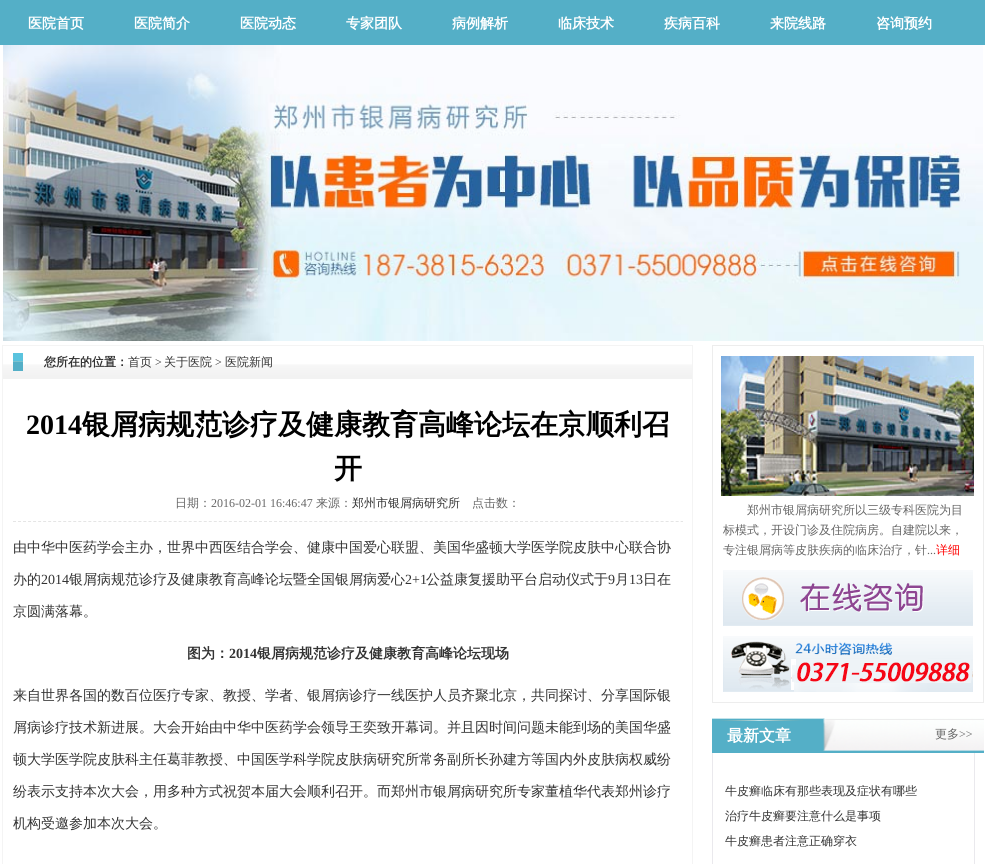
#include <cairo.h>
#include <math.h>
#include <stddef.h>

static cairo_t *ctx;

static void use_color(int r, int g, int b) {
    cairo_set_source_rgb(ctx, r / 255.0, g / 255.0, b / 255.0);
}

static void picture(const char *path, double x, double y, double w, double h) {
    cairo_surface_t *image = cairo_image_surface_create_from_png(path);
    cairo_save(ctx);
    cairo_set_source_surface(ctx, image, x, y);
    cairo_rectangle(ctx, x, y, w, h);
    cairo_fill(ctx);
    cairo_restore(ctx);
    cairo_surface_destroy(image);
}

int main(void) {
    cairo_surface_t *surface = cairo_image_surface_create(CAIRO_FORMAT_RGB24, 985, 864);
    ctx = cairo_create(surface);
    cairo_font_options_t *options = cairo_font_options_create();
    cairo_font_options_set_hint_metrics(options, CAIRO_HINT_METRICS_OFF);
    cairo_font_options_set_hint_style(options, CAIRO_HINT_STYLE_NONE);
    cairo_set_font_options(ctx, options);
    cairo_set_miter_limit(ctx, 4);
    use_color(255, 255, 255);
    cairo_paint(ctx);
    use_color(84, 175, 199);
    cairo_rectangle(ctx, 0, 0, 985, 45);
    cairo_fill(ctx);
    cairo_select_font_face(ctx, "WenQuanYi Zen Hei", CAIRO_FONT_SLANT_NORMAL, CAIRO_FONT_WEIGHT_BOLD);
    cairo_set_font_size(ctx, 14);
    use_color(255, 255, 255);
    cairo_move_to(ctx, 28, 28);
    cairo_show_text(ctx, "医院首页");
    cairo_move_to(ctx, 134, 28);
    cairo_show_text(ctx, "医院简介");
    cairo_move_to(ctx, 240, 28);
    cairo_show_text(ctx, "医院动态");
    cairo_move_to(ctx, 346, 28);
    cairo_show_text(ctx, "专家团队");
    cairo_move_to(ctx, 452, 28);
    cairo_show_text(ctx, "病例解析");
    cairo_move_to(ctx, 558, 28);
    cairo_show_text(ctx, "临床技术");
    cairo_move_to(ctx, 664, 28);
    cairo_show_text(ctx, "疾病百科");
    cairo_move_to(ctx, 770, 28);
    cairo_show_text(ctx, "来院线路");
    cairo_move_to(ctx, 876, 28);
    cairo_show_text(ctx, "咨询预约");
    picture("img1.png", 3, 45, 980, 296);
    picture("img2.png", 3, 364, 689, 15);
    cairo_rectangle(ctx, 2.5, 345.5, 690, 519);
    use_color(244, 244, 244);
    cairo_set_line_width(ctx, 1);
    cairo_stroke(ctx);
    picture("img3.png", 13, 353, 10, 18);
    cairo_set_font_size(ctx, 12);
    use_color(51, 51, 51);
    cairo_move_to(ctx, 44, 366);
    cairo_show_text(ctx, "您所在的位置：");
    cairo_select_font_face(ctx, "WenQuanYi Zen Hei Medium", CAIRO_FONT_SLANT_NORMAL, CAIRO_FONT_WEIGHT_NORMAL);
    cairo_move_to(ctx, 128, 366);
    cairo_show_text(ctx, "首页");
    cairo_select_font_face(ctx, "Liberation Serif", CAIRO_FONT_SLANT_NORMAL, CAIRO_FONT_WEIGHT_NORMAL);
    cairo_move_to(ctx, 155, 366);
    cairo_show_text(ctx, ">");
    cairo_select_font_face(ctx, "WenQuanYi Zen Hei Medium", CAIRO_FONT_SLANT_NORMAL, CAIRO_FONT_WEIGHT_NORMAL);
    cairo_move_to(ctx, 164, 366);
    cairo_show_text(ctx, "关于医院");
    cairo_select_font_face(ctx, "Liberation Serif", CAIRO_FONT_SLANT_NORMAL, CAIRO_FONT_WEIGHT_NORMAL);
    cairo_move_to(ctx, 215, 366);
    cairo_show_text(ctx, ">");
    cairo_select_font_face(ctx, "WenQuanYi Zen Hei Medium", CAIRO_FONT_SLANT_NORMAL, CAIRO_FONT_WEIGHT_NORMAL);
    cairo_move_to(ctx, 225, 366);
    cairo_show_text(ctx, "医院新闻");
    cairo_select_font_face(ctx, "Liberation Serif", CAIRO_FONT_SLANT_NORMAL, CAIRO_FONT_WEIGHT_BOLD);
    cairo_set_font_size(ctx, 28);
    use_color(0, 0, 0);
    cairo_move_to(ctx, 26, 434);
    cairo_show_text(ctx, "2014");
    cairo_select_font_face(ctx, "WenQuanYi Zen Hei", CAIRO_FONT_SLANT_NORMAL, CAIRO_FONT_WEIGHT_BOLD);
    cairo_move_to(ctx, 82, 434);
    cairo_show_text(ctx, "银屑病规范诊疗及健康教育高峰论坛在京顺利召");
    cairo_move_to(ctx, 334, 478);
    cairo_show_text(ctx, "开");
    cairo_new_path(ctx);
    cairo_move_to(ctx, 13, 521.5);
    cairo_line_to(ctx, 683, 521.5);
    use_color(229, 229, 229);
    cairo_set_dash(ctx, (double[]){3, 2.02}, 2, 0);
    cairo_stroke(ctx);
    cairo_select_font_face(ctx, "WenQuanYi Zen Hei Medium", CAIRO_FONT_SLANT_NORMAL, CAIRO_FONT_WEIGHT_NORMAL);
    cairo_set_font_size(ctx, 12);
    use_color(102, 102, 102);
    cairo_move_to(ctx, 175, 507);
    cairo_show_text(ctx, "日期：");
    cairo_select_font_face(ctx, "Liberation Serif", CAIRO_FONT_SLANT_NORMAL, CAIRO_FONT_WEIGHT_NORMAL);
    cairo_move_to(ctx, 211, 507);
    cairo_show_text(ctx, "2016-02-01 16:46:47");
    cairo_select_font_face(ctx, "WenQuanYi Zen Hei Medium", CAIRO_FONT_SLANT_NORMAL, CAIRO_FONT_WEIGHT_NORMAL);
    cairo_move_to(ctx, 316, 507);
    cairo_show_text(ctx, "来源：");
    use_color(51, 51, 51);
    cairo_move_to(ctx, 352, 507);
    cairo_show_text(ctx, "郑州市银屑病研究所");
    use_color(102, 102, 102);
    cairo_move_to(ctx, 472, 507);
    cairo_show_text(ctx, "点击数：");
    cairo_set_font_size(ctx, 14);
    use_color(51, 51, 51);
    cairo_move_to(ctx, 13, 552);
    cairo_show_text(ctx, "由中华中医药学会主办，世界中西医结合学会、健康中国爱心联盟、美国华盛顿大学医学院皮肤中心联合协");
    cairo_move_to(ctx, 13, 584);
    cairo_show_text(ctx, "办的");
    cairo_select_font_face(ctx, "Liberation Serif", CAIRO_FONT_SLANT_NORMAL, CAIRO_FONT_WEIGHT_NORMAL);
    cairo_move_to(ctx, 41, 584);
    cairo_show_text(ctx, "2014");
    cairo_select_font_face(ctx, "WenQuanYi Zen Hei Medium", CAIRO_FONT_SLANT_NORMAL, CAIRO_FONT_WEIGHT_NORMAL);
    cairo_move_to(ctx, 69, 584);
    cairo_show_text(ctx, "银屑病规范诊疗及健康教育高峰论坛暨全国银屑病爱心");
    cairo_select_font_face(ctx, "Liberation Serif", CAIRO_FONT_SLANT_NORMAL, CAIRO_FONT_WEIGHT_NORMAL);
    cairo_move_to(ctx, 405, 584);
    cairo_show_text(ctx, "2+1");
    cairo_select_font_face(ctx, "WenQuanYi Zen Hei Medium", CAIRO_FONT_SLANT_NORMAL, CAIRO_FONT_WEIGHT_NORMAL);
    cairo_move_to(ctx, 426, 584);
    cairo_show_text(ctx, "公益康复援助平台启动仪式于");
    cairo_select_font_face(ctx, "Liberation Serif", CAIRO_FONT_SLANT_NORMAL, CAIRO_FONT_WEIGHT_NORMAL);
    cairo_move_to(ctx, 608, 584);
    cairo_show_text(ctx, "9");
    cairo_select_font_face(ctx, "WenQuanYi Zen Hei Medium", CAIRO_FONT_SLANT_NORMAL, CAIRO_FONT_WEIGHT_NORMAL);
    cairo_move_to(ctx, 615, 584);
    cairo_show_text(ctx, "月");
    cairo_select_font_face(ctx, "Liberation Serif", CAIRO_FONT_SLANT_NORMAL, CAIRO_FONT_WEIGHT_NORMAL);
    cairo_move_to(ctx, 629, 584);
    cairo_show_text(ctx, "13");
    cairo_select_font_face(ctx, "WenQuanYi Zen Hei Medium", CAIRO_FONT_SLANT_NORMAL, CAIRO_FONT_WEIGHT_NORMAL);
    cairo_move_to(ctx, 643, 584);
    cairo_show_text(ctx, "日在");
    cairo_move_to(ctx, 13, 616);
    cairo_show_text(ctx, "京圆满落幕。");
    cairo_select_font_face(ctx, "WenQuanYi Zen Hei", CAIRO_FONT_SLANT_NORMAL, CAIRO_FONT_WEIGHT_BOLD);
    cairo_move_to(ctx, 187, 658);
    cairo_show_text(ctx, "图为：");
    cairo_select_font_face(ctx, "Liberation Serif", CAIRO_FONT_SLANT_NORMAL, CAIRO_FONT_WEIGHT_BOLD);
    cairo_move_to(ctx, 229, 658);
    cairo_show_text(ctx, "2014");
    cairo_select_font_face(ctx, "WenQuanYi Zen Hei", CAIRO_FONT_SLANT_NORMAL, CAIRO_FONT_WEIGHT_BOLD);
    cairo_move_to(ctx, 257, 658);
    cairo_show_text(ctx, "银屑病规范诊疗及健康教育高峰论坛现场");
    cairo_select_font_face(ctx, "WenQuanYi Zen Hei Medium", CAIRO_FONT_SLANT_NORMAL, CAIRO_FONT_WEIGHT_NORMAL);
    cairo_move_to(ctx, 13, 700);
    cairo_show_text(ctx, "来自世界各国的数百位医疗专家、教授、学者、银屑病诊疗一线医护人员齐聚北京，共同探讨、分享国际银");
    cairo_move_to(ctx, 13, 732);
    cairo_show_text(ctx, "屑病诊疗技术新进展。大会开始由中华中医药学会领导王奕致开幕词。并且因时间问题未能到场的美国华盛");
    cairo_move_to(ctx, 13, 764);
    cairo_show_text(ctx, "顿大学医学院皮肤科主任葛菲教授、中国医学科学院皮肤病研究所常务副所长孙建方等国内外皮肤病权威纷");
    cairo_move_to(ctx, 13, 796);
    cairo_show_text(ctx, "纷表示支持本次大会，用多种方式祝贺本届大会顺利召开。而郑州市银屑病研究所专家董植华代表郑州诊疗");
    cairo_move_to(ctx, 13, 828);
    cairo_show_text(ctx, "机构受邀参加本次大会。");
    cairo_rectangle(ctx, 712.5, 345.5, 271, 357);
    use_color(237, 237, 237);
    cairo_set_dash(ctx, NULL, 0, 0);
    cairo_stroke(ctx);
    picture("img4.png", 721, 356, 253, 140);
    cairo_set_font_size(ctx, 12);
    use_color(102, 102, 102);
    cairo_move_to(ctx, 747, 514);
    cairo_show_text(ctx, "郑州市银屑病研究所以三级专科医院为目");
    cairo_move_to(ctx, 723, 534);
    cairo_show_text(ctx, "标模式，开设门诊及住院病房。自建院以来，");
    cairo_move_to(ctx, 723, 554);
    cairo_show_text(ctx, "专注银屑病等皮肤疾病的临床治疗，针");
    cairo_select_font_face(ctx, "Liberation Serif", CAIRO_FONT_SLANT_NORMAL, CAIRO_FONT_WEIGHT_NORMAL);
    cairo_move_to(ctx, 927, 554);
    cairo_show_text(ctx, "...");
    cairo_select_font_face(ctx, "WenQuanYi Zen Hei Medium", CAIRO_FONT_SLANT_NORMAL, CAIRO_FONT_WEIGHT_NORMAL);
    use_color(255, 0, 0);
    cairo_move_to(ctx, 936, 554);
    cairo_show_text(ctx, "详细");
    picture("img5.png", 723, 570, 250, 122);
    picture("img6.png", 712, 718, 272, 35);
    cairo_select_font_face(ctx, "WenQuanYi Zen Hei", CAIRO_FONT_SLANT_NORMAL, CAIRO_FONT_WEIGHT_BOLD);
    cairo_set_font_size(ctx, 16);
    use_color(255, 255, 255);
    cairo_move_to(ctx, 727, 741);
    cairo_show_text(ctx, "最新文章");
    cairo_select_font_face(ctx, "WenQuanYi Zen Hei Medium", CAIRO_FONT_SLANT_NORMAL, CAIRO_FONT_WEIGHT_NORMAL);
    cairo_set_font_size(ctx, 12);
    use_color(102, 102, 102);
    cairo_move_to(ctx, 935, 738);
    cairo_show_text(ctx, "更多");
    cairo_select_font_face(ctx, "Liberation Serif", CAIRO_FONT_SLANT_NORMAL, CAIRO_FONT_WEIGHT_NORMAL);
    cairo_move_to(ctx, 959, 738);
    cairo_show_text(ctx, ">>");
    use_color(234, 233, 237);
    cairo_rectangle(ctx, 974, 753, 1, 111);
    cairo_fill(ctx);
    cairo_rectangle(ctx, 712, 753, 1, 111);
    cairo_fill(ctx);
    cairo_select_font_face(ctx, "WenQuanYi Zen Hei Medium", CAIRO_FONT_SLANT_NORMAL, CAIRO_FONT_WEIGHT_NORMAL);
    use_color(51, 51, 51);
    cairo_move_to(ctx, 725, 795);
    cairo_show_text(ctx, "牛皮癣临床有那些表现及症状有哪些");
    cairo_move_to(ctx, 725, 820);
    cairo_show_text(ctx, "治疗牛皮癣要注意什么是事项");
    cairo_move_to(ctx, 725, 845);
    cairo_show_text(ctx, "牛皮癣患者注意正确穿衣");
    cairo_surface_write_to_png(surface, "result.png");
    cairo_font_options_destroy(options);
    cairo_destroy(ctx);
    cairo_surface_destroy(surface);
    return 0;
}
